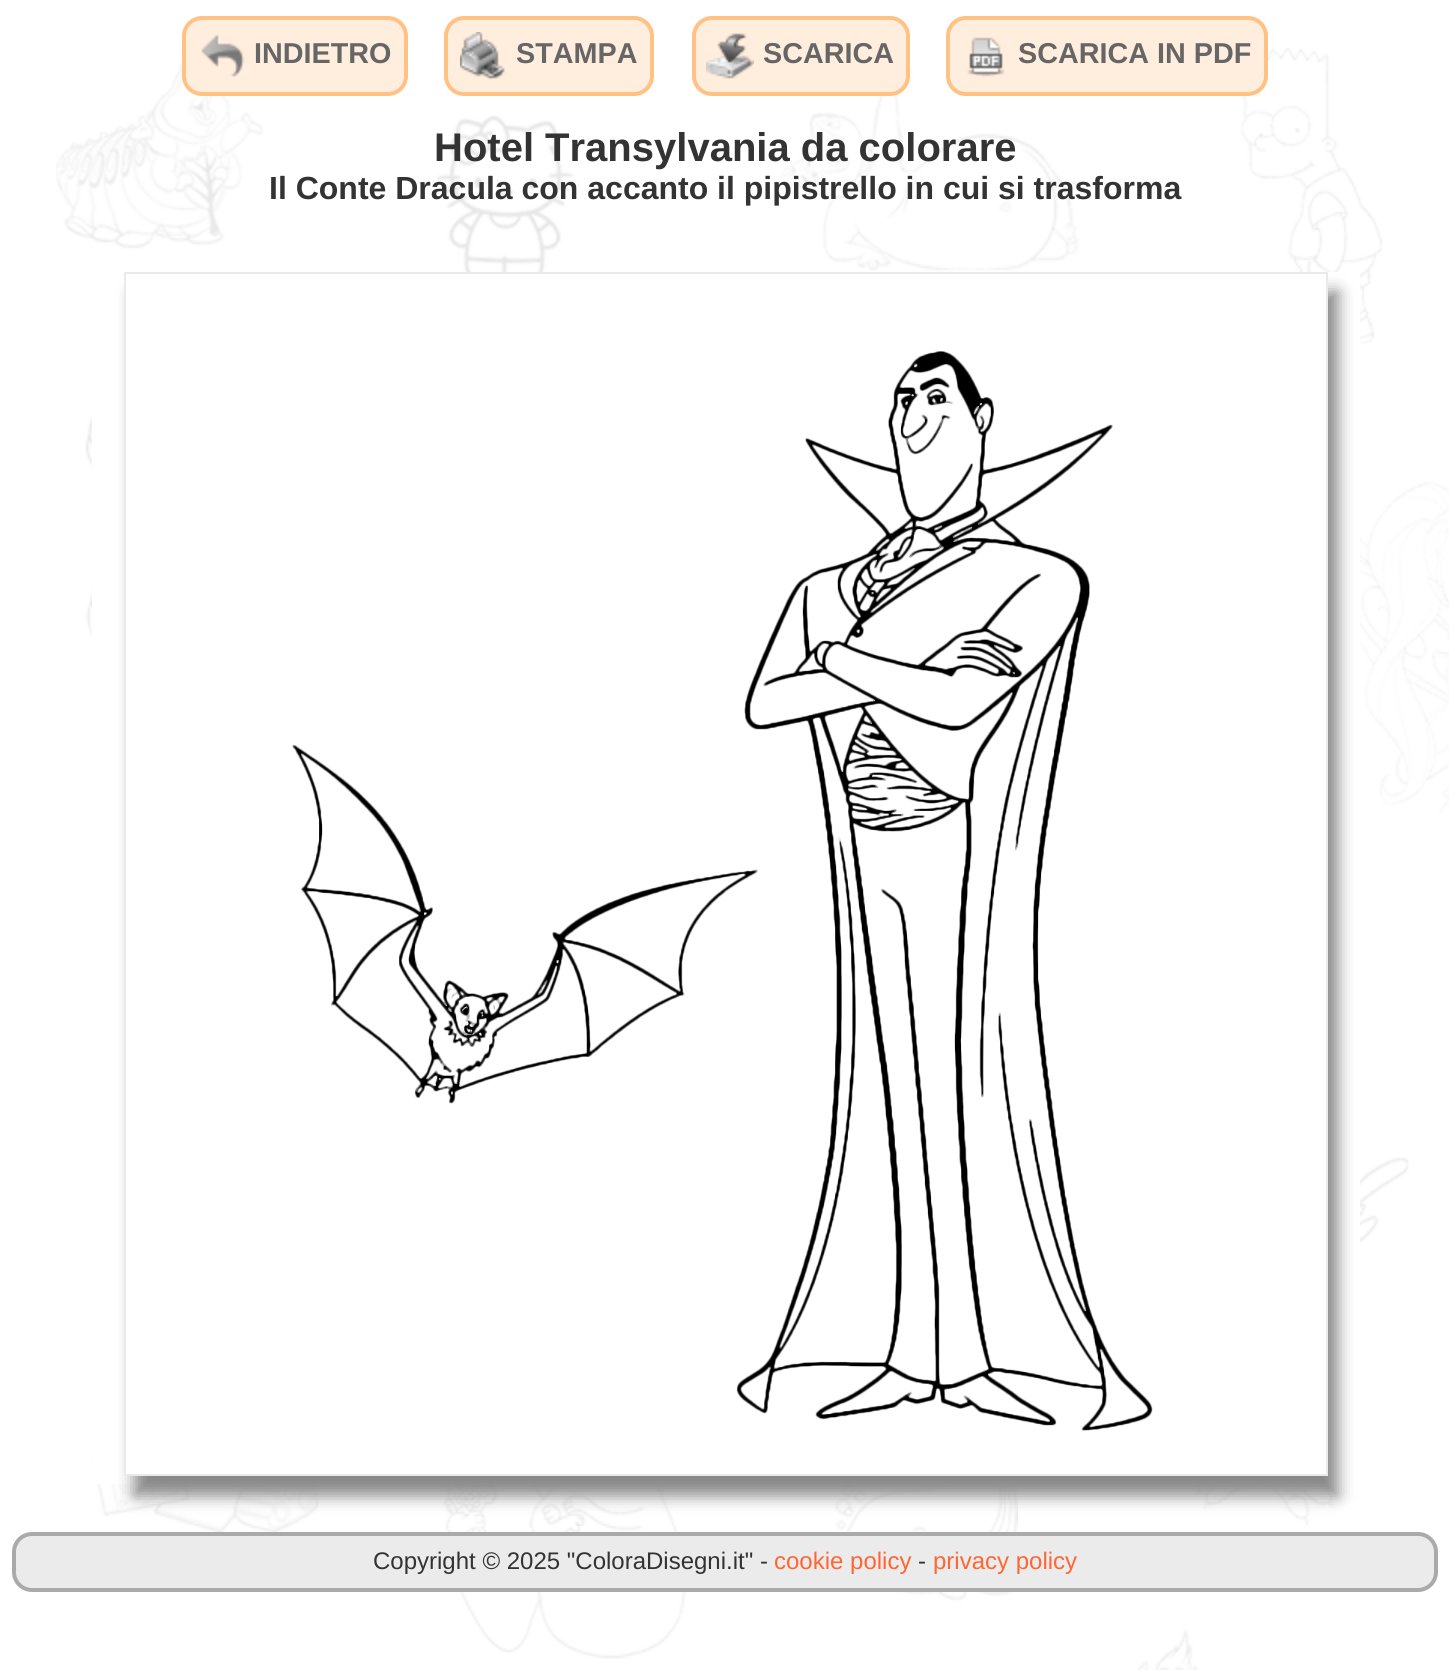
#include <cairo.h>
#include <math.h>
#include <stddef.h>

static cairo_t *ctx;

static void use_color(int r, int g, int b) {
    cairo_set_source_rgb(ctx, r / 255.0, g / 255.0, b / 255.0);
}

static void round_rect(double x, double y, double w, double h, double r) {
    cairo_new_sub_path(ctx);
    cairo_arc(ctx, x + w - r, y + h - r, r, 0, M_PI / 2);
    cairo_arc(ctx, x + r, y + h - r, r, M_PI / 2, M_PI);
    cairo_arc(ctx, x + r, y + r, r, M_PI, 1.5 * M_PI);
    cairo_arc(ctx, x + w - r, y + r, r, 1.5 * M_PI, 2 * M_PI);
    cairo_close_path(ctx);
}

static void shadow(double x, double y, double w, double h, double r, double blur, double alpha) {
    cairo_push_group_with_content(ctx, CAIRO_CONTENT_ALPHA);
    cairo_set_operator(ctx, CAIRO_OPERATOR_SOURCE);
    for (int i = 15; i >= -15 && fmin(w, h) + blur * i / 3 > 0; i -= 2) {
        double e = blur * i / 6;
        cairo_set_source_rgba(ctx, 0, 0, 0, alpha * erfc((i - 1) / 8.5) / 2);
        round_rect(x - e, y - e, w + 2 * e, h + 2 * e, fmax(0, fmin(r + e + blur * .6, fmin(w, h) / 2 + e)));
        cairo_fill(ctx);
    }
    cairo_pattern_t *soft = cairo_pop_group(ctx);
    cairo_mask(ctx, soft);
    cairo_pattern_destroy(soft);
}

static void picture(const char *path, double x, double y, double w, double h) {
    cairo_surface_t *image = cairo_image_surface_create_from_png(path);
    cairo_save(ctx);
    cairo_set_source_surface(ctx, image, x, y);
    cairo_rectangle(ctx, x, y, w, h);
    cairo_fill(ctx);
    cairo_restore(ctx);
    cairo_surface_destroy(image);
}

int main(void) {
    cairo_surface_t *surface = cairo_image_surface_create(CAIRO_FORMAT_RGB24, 1449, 1670);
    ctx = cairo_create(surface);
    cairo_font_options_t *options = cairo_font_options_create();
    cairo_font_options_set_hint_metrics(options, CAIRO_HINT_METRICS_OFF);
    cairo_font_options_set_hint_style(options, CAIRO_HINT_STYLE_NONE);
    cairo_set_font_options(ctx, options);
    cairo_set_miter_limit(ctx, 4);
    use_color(255, 255, 255);
    cairo_paint(ctx);
    picture("img1.png", 56, 48, 1393, 1622);
    use_color(255, 238, 221);
    round_rect(184, 18, 222, 76, 18);
    cairo_fill_preserve(ctx);
    use_color(255, 193, 132);
    cairo_set_line_width(ctx, 4);
    cairo_stroke(ctx);
    picture("img2.png", 201, 34, 44, 43);
    cairo_select_font_face(ctx, "Liberation Sans", CAIRO_FONT_SLANT_NORMAL, CAIRO_FONT_WEIGHT_BOLD);
    cairo_set_font_size(ctx, 28.75);
    use_color(102, 102, 102);
    cairo_move_to(ctx, 254, 63);
    cairo_show_text(ctx, "INDIETRO");
    use_color(255, 238, 221);
    round_rect(446, 18, 206, 76, 18);
    cairo_fill_preserve(ctx);
    use_color(255, 193, 132);
    cairo_stroke(ctx);
    picture("img3.png", 460, 32, 45, 48);
    use_color(102, 102, 102);
    cairo_move_to(ctx, 516, 63);
    cairo_show_text(ctx, "STAMPA");
    use_color(255, 238, 221);
    round_rect(694, 18, 214, 76, 18);
    cairo_fill_preserve(ctx);
    use_color(255, 193, 132);
    cairo_stroke(ctx);
    picture("img4.png", 706, 33, 48, 46);
    use_color(102, 102, 102);
    cairo_move_to(ctx, 763, 63);
    cairo_show_text(ctx, "SCARICA");
    use_color(255, 238, 221);
    round_rect(948, 18, 318, 76, 18);
    cairo_fill_preserve(ctx);
    use_color(255, 193, 132);
    cairo_stroke(ctx);
    picture("img5.png", 967, 37, 38, 40);
    use_color(102, 102, 102);
    cairo_move_to(ctx, 1018, 63);
    cairo_show_text(ctx, "SCARICA IN PDF");
    cairo_set_font_size(ctx, 40);
    use_color(51, 51, 51);
    cairo_move_to(ctx, 434, 161);
    cairo_show_text(ctx, "Hotel Transylvania da colorare");
    cairo_set_font_size(ctx, 32);
    cairo_move_to(ctx, 269, 199);
    cairo_show_text(ctx, "Il Conte Dracula con accanto il pipistrello in cui si trasforma");
    use_color(255, 255, 255);
    cairo_rectangle(ctx, 92, 272, 1268, 1212);
    cairo_fill(ctx);
    cairo_save(ctx);
    cairo_set_fill_rule(ctx, CAIRO_FILL_RULE_EVEN_ODD);
    cairo_new_path(ctx);
    cairo_move_to(ctx, 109, 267);
    cairo_line_to(ctx, 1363, 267);
    cairo_line_to(ctx, 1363, 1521);
    cairo_line_to(ctx, 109, 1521);
    cairo_close_path(ctx);
    cairo_move_to(ctx, 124, 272);
    cairo_line_to(ctx, 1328, 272);
    cairo_line_to(ctx, 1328, 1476);
    cairo_line_to(ctx, 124, 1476);
    cairo_close_path(ctx);
    cairo_clip(ctx);
    use_color(136, 136, 136);
    shadow(134, 292, 1204, 1204, 0, 8, 1);
    cairo_restore(ctx);
    cairo_rectangle(ctx, 125, 273, 1202, 1202);
    use_color(234, 234, 234);
    cairo_set_line_width(ctx, 2);
    cairo_stroke(ctx);
    picture("img6.png", 292, 351, 861, 1080);
    use_color(235, 235, 235);
    round_rect(14, 1534, 1422, 56, 18);
    cairo_fill_preserve(ctx);
    use_color(170, 170, 170);
    cairo_set_line_width(ctx, 4);
    cairo_stroke(ctx);
    cairo_select_font_face(ctx, "Liberation Sans", CAIRO_FONT_SLANT_NORMAL, CAIRO_FONT_WEIGHT_NORMAL);
    cairo_set_font_size(ctx, 24);
    use_color(51, 51, 51);
    cairo_move_to(ctx, 373, 1569);
    cairo_show_text(ctx, "Copyright © 2025 \"ColoraDisegni.it\" -");
    use_color(255, 102, 51);
    cairo_move_to(ctx, 774, 1569);
    cairo_show_text(ctx, "cookie policy");
    use_color(51, 51, 51);
    cairo_move_to(ctx, 918, 1569);
    cairo_show_text(ctx, "-");
    use_color(255, 102, 51);
    cairo_move_to(ctx, 933, 1569);
    cairo_show_text(ctx, "privacy policy");
    cairo_surface_write_to_png(surface, "result.png");
    cairo_font_options_destroy(options);
    cairo_destroy(ctx);
    cairo_surface_destroy(surface);
    return 0;
}
